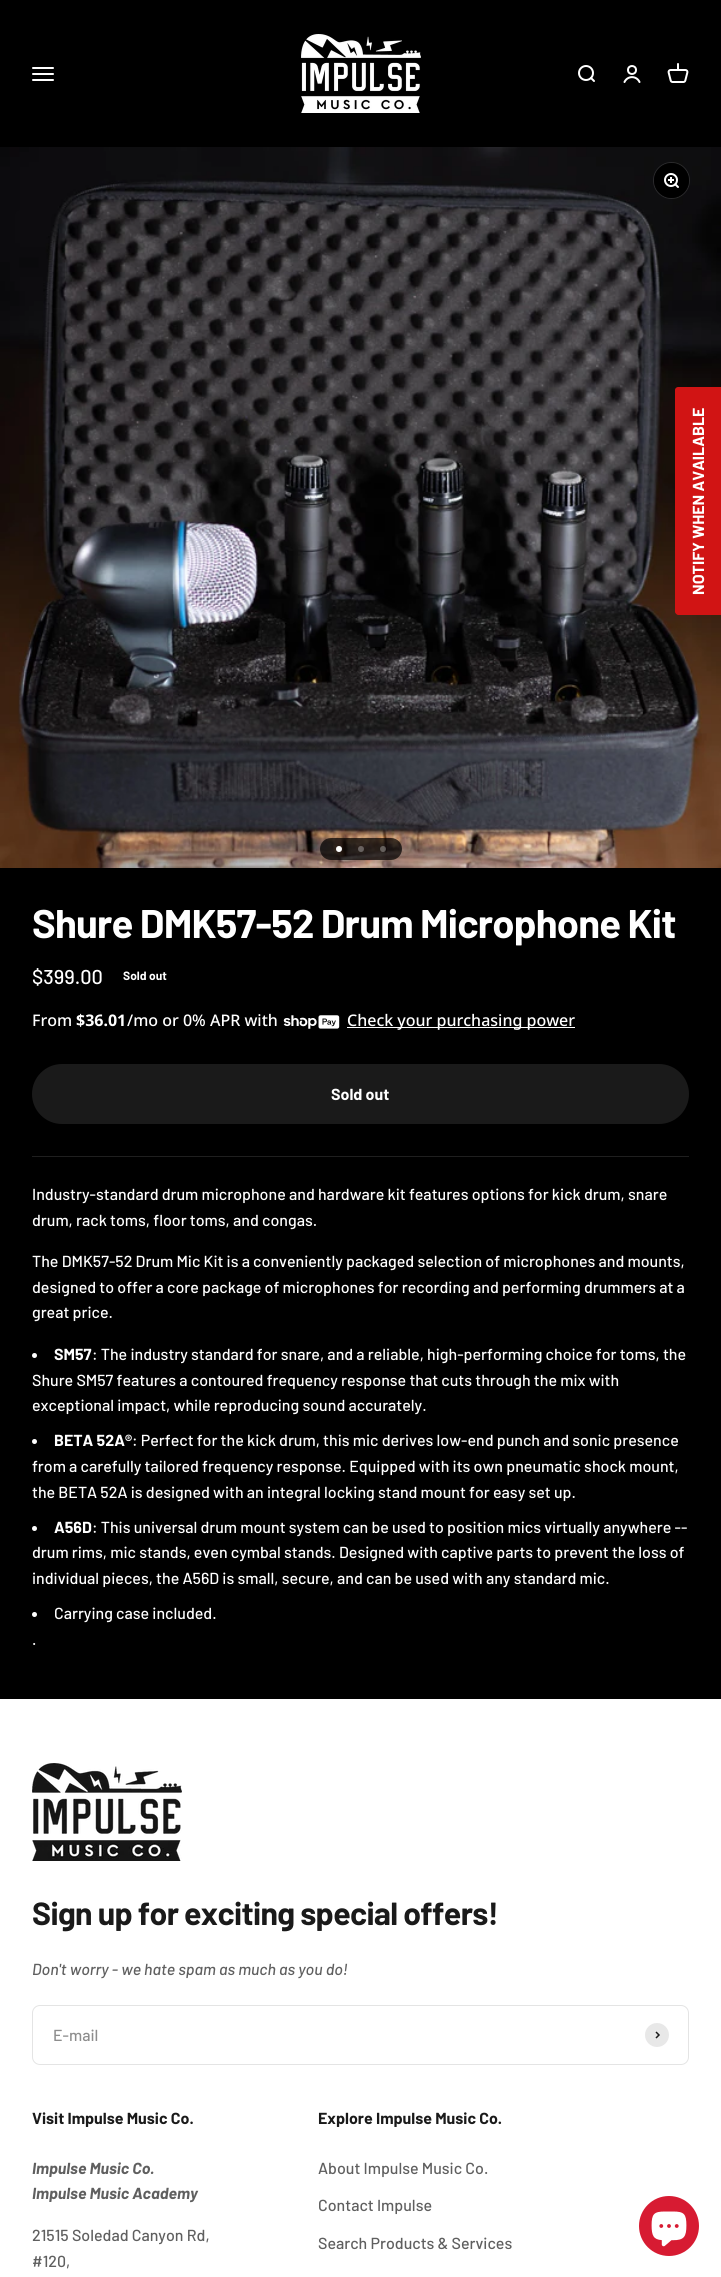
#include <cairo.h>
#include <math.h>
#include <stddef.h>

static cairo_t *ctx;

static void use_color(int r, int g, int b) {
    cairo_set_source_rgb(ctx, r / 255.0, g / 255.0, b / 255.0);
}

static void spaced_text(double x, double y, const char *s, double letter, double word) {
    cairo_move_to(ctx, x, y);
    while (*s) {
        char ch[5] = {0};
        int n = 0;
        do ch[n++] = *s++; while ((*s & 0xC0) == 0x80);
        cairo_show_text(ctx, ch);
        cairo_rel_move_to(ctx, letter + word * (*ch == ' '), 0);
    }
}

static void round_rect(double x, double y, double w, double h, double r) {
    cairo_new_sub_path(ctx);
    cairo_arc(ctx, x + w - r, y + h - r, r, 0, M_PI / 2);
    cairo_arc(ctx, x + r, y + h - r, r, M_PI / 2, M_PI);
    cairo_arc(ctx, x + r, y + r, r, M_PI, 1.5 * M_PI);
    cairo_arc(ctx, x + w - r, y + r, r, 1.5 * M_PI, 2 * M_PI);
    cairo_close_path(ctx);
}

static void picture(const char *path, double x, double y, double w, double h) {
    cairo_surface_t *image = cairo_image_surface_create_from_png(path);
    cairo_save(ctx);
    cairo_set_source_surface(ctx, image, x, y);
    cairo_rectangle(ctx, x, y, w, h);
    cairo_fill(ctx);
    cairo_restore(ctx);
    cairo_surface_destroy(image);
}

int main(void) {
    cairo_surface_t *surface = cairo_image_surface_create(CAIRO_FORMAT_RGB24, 721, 2277);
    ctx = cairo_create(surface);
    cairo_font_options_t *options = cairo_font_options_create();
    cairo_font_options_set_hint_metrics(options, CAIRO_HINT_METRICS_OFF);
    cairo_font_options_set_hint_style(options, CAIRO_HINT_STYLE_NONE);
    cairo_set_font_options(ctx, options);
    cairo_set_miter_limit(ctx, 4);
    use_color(0, 0, 0);
    cairo_paint(ctx);
    picture("img1.png", 32, 67, 22, 14);
    picture("img2.png", 301, 34, 120, 79);
    picture("img3.png", 578, 65, 17, 17);
    cairo_arc(ctx, 632, 70, 4, 0, 2 * M_PI);
    use_color(255, 255, 255);
    cairo_stroke(ctx);
    cairo_new_path(ctx);
    cairo_move_to(ctx, 624.5, 82);
    cairo_curve_to(ctx, 627.5, 75.5, 636.5, 75.5, 639.5, 82);
    cairo_set_line_cap(ctx, CAIRO_LINE_CAP_ROUND);
    cairo_stroke(ctx);
    picture("img4.png", 667, 63, 22, 20);
    picture("img5.png", 0, 147, 721, 721);
    use_color(209, 20, 20);
    cairo_new_path(ctx);
    cairo_move_to(ctx, 675, 612);
    cairo_line_to(ctx, 675, 390);
    cairo_curve_to(ctx, 675, 388, 677, 387, 678, 387);
    cairo_line_to(ctx, 721, 387);
    cairo_line_to(ctx, 721, 615);
    cairo_line_to(ctx, 678, 615);
    cairo_curve_to(ctx, 677, 615, 675, 613, 675, 612);
    cairo_close_path(ctx);
    cairo_fill(ctx);
    cairo_select_font_face(ctx, "Barlow", CAIRO_FONT_SLANT_NORMAL, CAIRO_FONT_WEIGHT_BOLD);
    cairo_set_font_size(ctx, 16);
    use_color(255, 255, 255);
    cairo_save(ctx);
    cairo_translate(ctx, 704, 595);
    cairo_rotate(ctx, -90 * M_PI / 180);
    cairo_move_to(ctx, 0, 0);
    cairo_show_text(ctx, "NOTIFY WHEN AVAILABLE");
    cairo_restore(ctx);
    cairo_new_path(ctx);
    cairo_arc(ctx, 671.5, 180.5, 18, 0, 2 * M_PI);
    cairo_set_source_rgba(ctx, 1, 1, 1, 0.12);
    cairo_set_line_width(ctx, 1);
    cairo_set_line_cap(ctx, CAIRO_LINE_CAP_BUTT);
    cairo_stroke(ctx);
    use_color(0, 0, 0);
    cairo_arc(ctx, 671.5, 180.5, 17.5, 0, 2 * M_PI);
    cairo_fill(ctx);
    picture("img6.png", 664, 173, 15, 15);
    cairo_set_source_rgba(ctx, 0, 0, 0, 0.7);
    round_rect(320, 838, 82, 22, 11);
    cairo_fill(ctx);
    use_color(255, 255, 255);
    cairo_arc(ctx, 339, 849, 3, 0, 2 * M_PI);
    cairo_fill(ctx);
    cairo_set_source_rgba(ctx, 1, 1, 1, 0.3);
    cairo_arc(ctx, 361, 849, 3, 0, 2 * M_PI);
    cairo_fill(ctx);
    cairo_arc(ctx, 383, 849, 3, 0, 2 * M_PI);
    cairo_fill(ctx);
    cairo_set_font_size(ctx, 40);
    use_color(255, 255, 255);
    spaced_text(32, 938, "Shure DMK57-52 Drum Microphone Kit", -0.8, 0);
    cairo_select_font_face(ctx, "Barlow Medium", CAIRO_FONT_SLANT_NORMAL, CAIRO_FONT_WEIGHT_NORMAL);
    cairo_set_font_size(ctx, 20);
    cairo_move_to(ctx, 32, 984);
    cairo_show_text(ctx, "$399.00");
    cairo_select_font_face(ctx, "Barlow", CAIRO_FONT_SLANT_NORMAL, CAIRO_FONT_WEIGHT_BOLD);
    cairo_set_font_size(ctx, 12);
    cairo_move_to(ctx, 123, 980);
    cairo_show_text(ctx, "Sold out");
    cairo_select_font_face(ctx, "Noto Sans Medium", CAIRO_FONT_SLANT_NORMAL, CAIRO_FONT_WEIGHT_NORMAL);
    cairo_set_font_size(ctx, 16);
    cairo_move_to(ctx, 32, 1026);
    cairo_show_text(ctx, "From");
    cairo_select_font_face(ctx, "Noto Sans", CAIRO_FONT_SLANT_NORMAL, CAIRO_FONT_WEIGHT_BOLD);
    cairo_move_to(ctx, 76, 1026);
    cairo_show_text(ctx, "$36.01");
    cairo_select_font_face(ctx, "Noto Sans Medium", CAIRO_FONT_SLANT_NORMAL, CAIRO_FONT_WEIGHT_NORMAL);
    cairo_move_to(ctx, 127, 1026);
    cairo_show_text(ctx, "/mo or 0% APR with");
    picture("img7.png", 283, 1015, 57, 14);
    cairo_rectangle(ctx, 347, 1027, 228, 1);
    cairo_fill(ctx);
    cairo_move_to(ctx, 347, 1026);
    cairo_show_text(ctx, "Check your purchasing power");
    use_color(26, 26, 26);
    round_rect(32, 1064, 657, 60, 30);
    cairo_fill(ctx);
    cairo_select_font_face(ctx, "Barlow", CAIRO_FONT_SLANT_NORMAL, CAIRO_FONT_WEIGHT_BOLD);
    use_color(255, 255, 255);
    cairo_move_to(ctx, 331, 1100);
    cairo_show_text(ctx, "Sold out");
    use_color(31, 31, 31);
    cairo_rectangle(ctx, 32, 1156, 657, 1);
    cairo_fill(ctx);
    cairo_select_font_face(ctx, "Barlow Medium", CAIRO_FONT_SLANT_NORMAL, CAIRO_FONT_WEIGHT_NORMAL);
    use_color(255, 255, 255);
    cairo_move_to(ctx, 32, 1200);
    cairo_show_text(ctx, "Industry-standard drum microphone and hardware kit features options for kick drum, snare");
    cairo_move_to(ctx, 32, 1226);
    cairo_show_text(ctx, "drum, rack toms, floor toms, and congas.");
    cairo_move_to(ctx, 32, 1267);
    cairo_show_text(ctx, "The DMK57-52 Drum Mic Kit is a conveniently packaged selection of microphones and mounts,");
    cairo_move_to(ctx, 32, 1293);
    cairo_show_text(ctx, "designed to offer a core package of microphones for recording and performing drummers at a");
    cairo_move_to(ctx, 32, 1318);
    cairo_show_text(ctx, "great price.");
    cairo_new_path(ctx);
    cairo_arc(ctx, 34.5, 1355.5, 2.5, 0, 2 * M_PI);
    cairo_fill(ctx);
    cairo_select_font_face(ctx, "Barlow", CAIRO_FONT_SLANT_NORMAL, CAIRO_FONT_WEIGHT_BOLD);
    cairo_move_to(ctx, 54, 1360);
    cairo_show_text(ctx, "SM57");
    cairo_select_font_face(ctx, "Barlow Medium", CAIRO_FONT_SLANT_NORMAL, CAIRO_FONT_WEIGHT_NORMAL);
    cairo_move_to(ctx, 92, 1360);
    cairo_show_text(ctx, ": The industry standard for snare, and a reliable, high-performing choice for toms, the");
    cairo_move_to(ctx, 32, 1386);
    cairo_show_text(ctx, "Shure SM57 features a contoured frequency response that cuts through the mix with");
    cairo_move_to(ctx, 32, 1411);
    cairo_show_text(ctx, "exceptional impact, while reproducing sound accurately.");
    cairo_new_path(ctx);
    cairo_arc(ctx, 34.5, 1441.5, 2.5, 0, 2 * M_PI);
    cairo_fill(ctx);
    cairo_select_font_face(ctx, "Barlow", CAIRO_FONT_SLANT_NORMAL, CAIRO_FONT_WEIGHT_BOLD);
    cairo_move_to(ctx, 54, 1446);
    cairo_show_text(ctx, "BETA 52A®");
    cairo_select_font_face(ctx, "Barlow Medium", CAIRO_FONT_SLANT_NORMAL, CAIRO_FONT_WEIGHT_NORMAL);
    cairo_move_to(ctx, 132, 1446);
    cairo_show_text(ctx, ": Perfect for the kick drum, this mic derives low-end punch and sonic presence");
    cairo_move_to(ctx, 32, 1472);
    cairo_show_text(ctx, "from a carefully tailored frequency response. Equipped with its own pneumatic shock mount,");
    cairo_move_to(ctx, 32, 1498);
    cairo_show_text(ctx, "the BETA 52A is designed with an integral locking stand mount for easy set up.");
    cairo_new_path(ctx);
    cairo_arc(ctx, 34.5, 1528.5, 2.5, 0, 2 * M_PI);
    cairo_fill(ctx);
    cairo_select_font_face(ctx, "Barlow", CAIRO_FONT_SLANT_NORMAL, CAIRO_FONT_WEIGHT_BOLD);
    cairo_move_to(ctx, 54, 1533);
    cairo_show_text(ctx, "A56D");
    cairo_select_font_face(ctx, "Barlow Medium", CAIRO_FONT_SLANT_NORMAL, CAIRO_FONT_WEIGHT_NORMAL);
    cairo_move_to(ctx, 92, 1533);
    cairo_show_text(ctx, ": This universal drum mount system can be used to position mics virtually anywhere --");
    cairo_move_to(ctx, 32, 1558);
    cairo_show_text(ctx, "drum rims, mic stands, even cymbal stands. Designed with captive parts to prevent the loss of");
    cairo_move_to(ctx, 32, 1584);
    cairo_show_text(ctx, "individual pieces, the A56D is small, secure, and can be used with any standard mic.");
    cairo_new_path(ctx);
    cairo_arc(ctx, 34.5, 1614.5, 2.5, 0, 2 * M_PI);
    cairo_fill(ctx);
    cairo_move_to(ctx, 54, 1619);
    cairo_show_text(ctx, "Carrying case included.");
    cairo_move_to(ctx, 32, 1645);
    cairo_show_text(ctx, ".");
    cairo_rectangle(ctx, 0, 1699, 721, 578);
    cairo_fill(ctx);
    picture("img8.png", 32, 1763, 150, 98);
    cairo_select_font_face(ctx, "Barlow", CAIRO_FONT_SLANT_NORMAL, CAIRO_FONT_WEIGHT_BOLD);
    cairo_set_font_size(ctx, 32);
    use_color(26, 26, 26);
    spaced_text(32, 1925, "Sign up for exciting special offers!", -0.65, 0);
    cairo_select_font_face(ctx, "Barlow Medium", CAIRO_FONT_SLANT_ITALIC, CAIRO_FONT_WEIGHT_NORMAL);
    cairo_set_font_size(ctx, 16);
    use_color(95, 95, 95);
    cairo_move_to(ctx, 32, 1975);
    cairo_show_text(ctx, "Don't worry - we hate spam as much as you do!");
    round_rect(32.5, 2005.5, 656, 59, 7.5);
    use_color(228, 228, 228);
    cairo_stroke(ctx);
    cairo_select_font_face(ctx, "Barlow Medium", CAIRO_FONT_SLANT_NORMAL, CAIRO_FONT_WEIGHT_NORMAL);
    use_color(141, 141, 141);
    cairo_move_to(ctx, 53, 2041);
    cairo_show_text(ctx, "E-mail");
    use_color(232, 232, 232);
    cairo_new_path(ctx);
    cairo_arc(ctx, 657, 2035, 12, 0, 2 * M_PI);
    cairo_fill(ctx);
    cairo_new_path(ctx);
    cairo_move_to(ctx, 656, 2038);
    cairo_line_to(ctx, 659, 2035);
    cairo_line_to(ctx, 656, 2032);
    use_color(26, 26, 26);
    cairo_set_line_width(ctx, 1.5);
    cairo_stroke(ctx);
    cairo_select_font_face(ctx, "Barlow", CAIRO_FONT_SLANT_NORMAL, CAIRO_FONT_WEIGHT_BOLD);
    cairo_move_to(ctx, 32, 2124);
    cairo_show_text(ctx, "Visit Impulse Music Co.");
    cairo_select_font_face(ctx, "Barlow", CAIRO_FONT_SLANT_ITALIC, CAIRO_FONT_WEIGHT_BOLD);
    use_color(95, 95, 95);
    cairo_move_to(ctx, 32, 2174);
    cairo_show_text(ctx, "Impulse Music Co.");
    cairo_move_to(ctx, 32, 2199);
    cairo_show_text(ctx, "Impulse Music Academy");
    cairo_select_font_face(ctx, "Barlow Medium", CAIRO_FONT_SLANT_NORMAL, CAIRO_FONT_WEIGHT_NORMAL);
    cairo_move_to(ctx, 32, 2241);
    cairo_show_text(ctx, "21515 Soledad Canyon Rd,");
    cairo_move_to(ctx, 32, 2267);
    cairo_show_text(ctx, "#120,");
    cairo_select_font_face(ctx, "Barlow", CAIRO_FONT_SLANT_NORMAL, CAIRO_FONT_WEIGHT_BOLD);
    use_color(26, 26, 26);
    cairo_move_to(ctx, 318, 2124);
    cairo_show_text(ctx, "Explore Impulse Music Co.");
    cairo_select_font_face(ctx, "Barlow Medium", CAIRO_FONT_SLANT_NORMAL, CAIRO_FONT_WEIGHT_NORMAL);
    use_color(95, 95, 95);
    cairo_move_to(ctx, 318, 2174);
    cairo_show_text(ctx, "About Impulse Music Co.");
    cairo_move_to(ctx, 318, 2211);
    cairo_show_text(ctx, "Contact Impulse");
    cairo_move_to(ctx, 318, 2249);
    cairo_show_text(ctx, "Search Products & Services");
    use_color(215, 27, 50);
    cairo_new_path(ctx);
    cairo_arc(ctx, 669, 2226, 30, 0, 2 * M_PI);
    cairo_fill(ctx);
    picture("img9.png", 651, 2211, 36, 36);
    cairo_surface_write_to_png(surface, "result.png");
    cairo_font_options_destroy(options);
    cairo_destroy(ctx);
    cairo_surface_destroy(surface);
    return 0;
}
